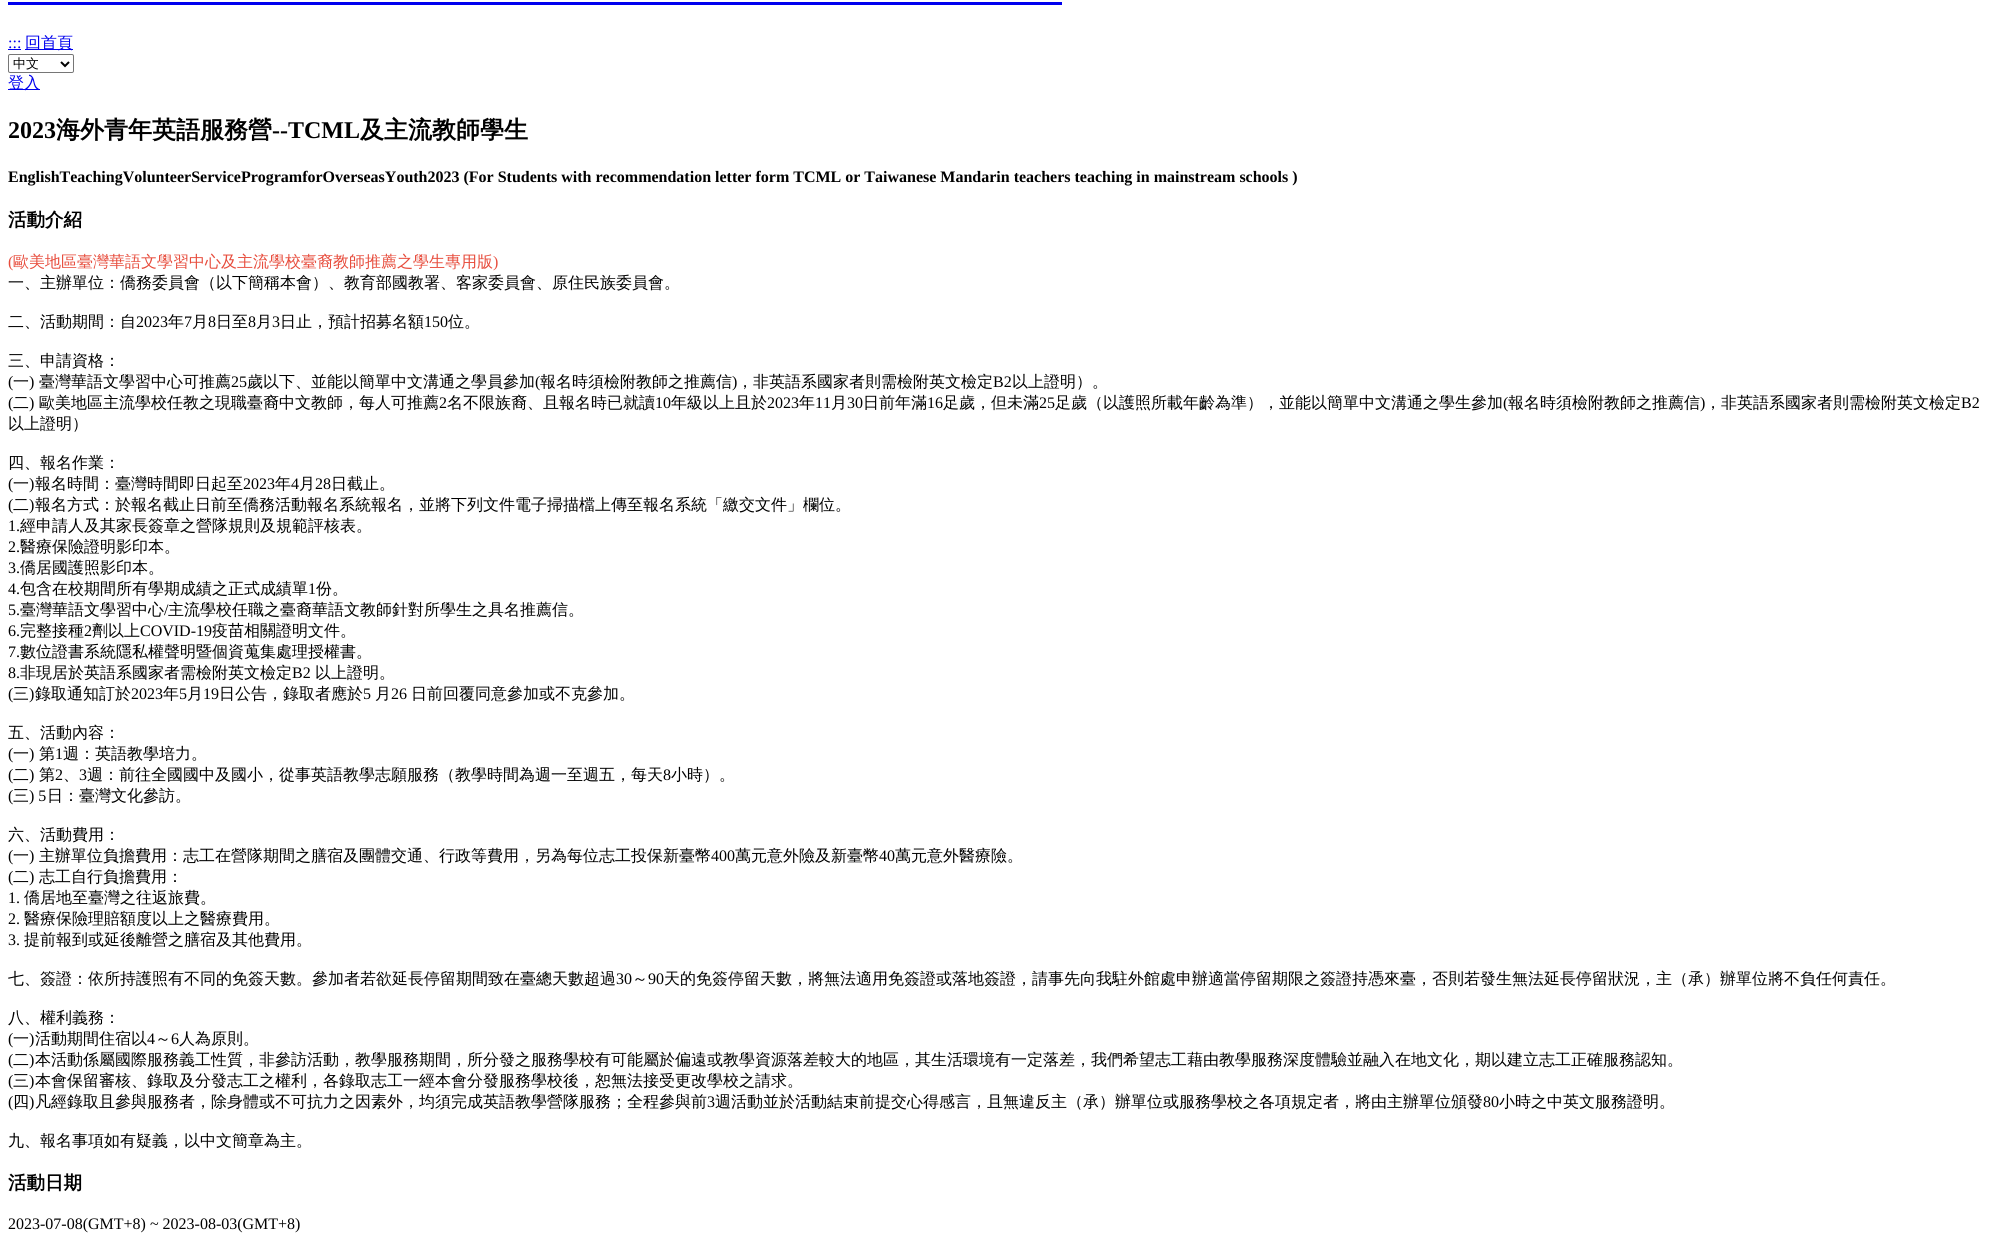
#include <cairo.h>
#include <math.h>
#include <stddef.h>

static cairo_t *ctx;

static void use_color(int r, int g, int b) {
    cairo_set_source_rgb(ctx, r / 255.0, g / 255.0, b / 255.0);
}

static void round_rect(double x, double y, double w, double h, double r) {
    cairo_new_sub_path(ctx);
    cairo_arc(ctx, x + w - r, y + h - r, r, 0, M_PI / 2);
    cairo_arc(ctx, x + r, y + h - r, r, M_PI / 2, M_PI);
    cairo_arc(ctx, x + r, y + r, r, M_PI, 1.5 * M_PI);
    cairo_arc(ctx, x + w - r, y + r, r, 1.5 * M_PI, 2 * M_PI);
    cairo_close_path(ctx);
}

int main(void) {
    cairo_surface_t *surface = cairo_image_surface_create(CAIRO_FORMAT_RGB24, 1997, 1236);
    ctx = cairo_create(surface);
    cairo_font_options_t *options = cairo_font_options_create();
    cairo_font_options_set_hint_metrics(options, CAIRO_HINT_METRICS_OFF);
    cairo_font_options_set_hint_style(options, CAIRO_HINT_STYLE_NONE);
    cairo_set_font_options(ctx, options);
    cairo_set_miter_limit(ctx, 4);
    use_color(255, 255, 255);
    cairo_paint(ctx);
    use_color(0, 0, 238);
    cairo_rectangle(ctx, 8, 2, 1054, 3);
    cairo_fill(ctx);
    cairo_select_font_face(ctx, "Liberation Serif", CAIRO_FONT_SLANT_NORMAL, CAIRO_FONT_WEIGHT_NORMAL);
    cairo_set_font_size(ctx, 16);
    cairo_move_to(ctx, 8, 48);
    cairo_show_text(ctx, ":::");
    cairo_rectangle(ctx, 8, 49, 13, 1);
    cairo_fill(ctx);
    cairo_rectangle(ctx, 25, 49, 48, 1);
    cairo_fill(ctx);
    cairo_select_font_face(ctx, "WenQuanYi Zen Hei Medium", CAIRO_FONT_SLANT_NORMAL, CAIRO_FONT_WEIGHT_NORMAL);
    cairo_move_to(ctx, 25, 48);
    cairo_show_text(ctx, "回首頁");
    round_rect(8.5, 54.5, 65, 18, 1.5);
    use_color(118, 118, 118);
    cairo_set_line_width(ctx, 1);
    cairo_stroke(ctx);
    cairo_new_path(ctx);
    cairo_move_to(ctx, 61, 62);
    cairo_line_to(ctx, 65, 66);
    cairo_line_to(ctx, 69, 62);
    use_color(0, 0, 0);
    cairo_set_line_width(ctx, 2);
    cairo_stroke(ctx);
    cairo_set_font_size(ctx, 13);
    cairo_move_to(ctx, 13, 68);
    cairo_show_text(ctx, "中文");
    use_color(0, 0, 238);
    cairo_rectangle(ctx, 8, 89, 32, 1);
    cairo_fill(ctx);
    cairo_set_font_size(ctx, 16);
    cairo_move_to(ctx, 8, 88);
    cairo_show_text(ctx, "登入");
    cairo_select_font_face(ctx, "Liberation Serif", CAIRO_FONT_SLANT_NORMAL, CAIRO_FONT_WEIGHT_BOLD);
    cairo_set_font_size(ctx, 24);
    use_color(0, 0, 0);
    cairo_move_to(ctx, 8, 138);
    cairo_show_text(ctx, "2023");
    cairo_select_font_face(ctx, "WenQuanYi Zen Hei", CAIRO_FONT_SLANT_NORMAL, CAIRO_FONT_WEIGHT_BOLD);
    cairo_move_to(ctx, 56, 138);
    cairo_show_text(ctx, "海外青年英語服務營");
    cairo_select_font_face(ctx, "Liberation Serif", CAIRO_FONT_SLANT_NORMAL, CAIRO_FONT_WEIGHT_BOLD);
    cairo_move_to(ctx, 272, 138);
    cairo_show_text(ctx, "--TCML");
    cairo_select_font_face(ctx, "WenQuanYi Zen Hei", CAIRO_FONT_SLANT_NORMAL, CAIRO_FONT_WEIGHT_BOLD);
    cairo_move_to(ctx, 360, 138);
    cairo_show_text(ctx, "及主流教師學生");
    cairo_select_font_face(ctx, "Liberation Serif", CAIRO_FONT_SLANT_NORMAL, CAIRO_FONT_WEIGHT_BOLD);
    cairo_set_font_size(ctx, 16);
    cairo_move_to(ctx, 8, 182);
    cairo_show_text(ctx, "EnglishTeachingVolunteerServiceProgramforOverseasYouth2023 (For Students with recommendation letter form TCML or Taiwanese Mandarin teachers teaching in mainstream schools )");
    cairo_select_font_face(ctx, "WenQuanYi Zen Hei", CAIRO_FONT_SLANT_NORMAL, CAIRO_FONT_WEIGHT_BOLD);
    cairo_set_font_size(ctx, 18.5);
    cairo_move_to(ctx, 8, 226);
    cairo_show_text(ctx, "活動介紹");
    cairo_select_font_face(ctx, "Liberation Serif", CAIRO_FONT_SLANT_NORMAL, CAIRO_FONT_WEIGHT_NORMAL);
    cairo_set_font_size(ctx, 16);
    use_color(231, 76, 60);
    cairo_move_to(ctx, 8, 267);
    cairo_show_text(ctx, "(");
    cairo_select_font_face(ctx, "WenQuanYi Zen Hei Medium", CAIRO_FONT_SLANT_NORMAL, CAIRO_FONT_WEIGHT_NORMAL);
    cairo_move_to(ctx, 13, 267);
    cairo_show_text(ctx, "歐美地區臺灣華語文學習中心及主流學校臺裔教師推薦之學生專用版");
    cairo_select_font_face(ctx, "Liberation Serif", CAIRO_FONT_SLANT_NORMAL, CAIRO_FONT_WEIGHT_NORMAL);
    cairo_move_to(ctx, 493, 267);
    cairo_show_text(ctx, ")");
    cairo_select_font_face(ctx, "WenQuanYi Zen Hei Medium", CAIRO_FONT_SLANT_NORMAL, CAIRO_FONT_WEIGHT_NORMAL);
    use_color(0, 0, 0);
    cairo_move_to(ctx, 8, 288);
    cairo_show_text(ctx, "一、主辦單位：僑務委員會（以下簡稱本會）、教育部國教署、客家委員會、原住民族委員會。");
    cairo_move_to(ctx, 8, 327);
    cairo_show_text(ctx, "二、活動期間：自");
    cairo_select_font_face(ctx, "Liberation Serif", CAIRO_FONT_SLANT_NORMAL, CAIRO_FONT_WEIGHT_NORMAL);
    cairo_move_to(ctx, 136, 327);
    cairo_show_text(ctx, "2023");
    cairo_select_font_face(ctx, "WenQuanYi Zen Hei Medium", CAIRO_FONT_SLANT_NORMAL, CAIRO_FONT_WEIGHT_NORMAL);
    cairo_move_to(ctx, 168, 327);
    cairo_show_text(ctx, "年");
    cairo_select_font_face(ctx, "Liberation Serif", CAIRO_FONT_SLANT_NORMAL, CAIRO_FONT_WEIGHT_NORMAL);
    cairo_move_to(ctx, 184, 327);
    cairo_show_text(ctx, "7");
    cairo_select_font_face(ctx, "WenQuanYi Zen Hei Medium", CAIRO_FONT_SLANT_NORMAL, CAIRO_FONT_WEIGHT_NORMAL);
    cairo_move_to(ctx, 192, 327);
    cairo_show_text(ctx, "月");
    cairo_select_font_face(ctx, "Liberation Serif", CAIRO_FONT_SLANT_NORMAL, CAIRO_FONT_WEIGHT_NORMAL);
    cairo_move_to(ctx, 208, 327);
    cairo_show_text(ctx, "8");
    cairo_select_font_face(ctx, "WenQuanYi Zen Hei Medium", CAIRO_FONT_SLANT_NORMAL, CAIRO_FONT_WEIGHT_NORMAL);
    cairo_move_to(ctx, 216, 327);
    cairo_show_text(ctx, "日至");
    cairo_select_font_face(ctx, "Liberation Serif", CAIRO_FONT_SLANT_NORMAL, CAIRO_FONT_WEIGHT_NORMAL);
    cairo_move_to(ctx, 248, 327);
    cairo_show_text(ctx, "8");
    cairo_select_font_face(ctx, "WenQuanYi Zen Hei Medium", CAIRO_FONT_SLANT_NORMAL, CAIRO_FONT_WEIGHT_NORMAL);
    cairo_move_to(ctx, 256, 327);
    cairo_show_text(ctx, "月");
    cairo_select_font_face(ctx, "Liberation Serif", CAIRO_FONT_SLANT_NORMAL, CAIRO_FONT_WEIGHT_NORMAL);
    cairo_move_to(ctx, 272, 327);
    cairo_show_text(ctx, "3");
    cairo_select_font_face(ctx, "WenQuanYi Zen Hei Medium", CAIRO_FONT_SLANT_NORMAL, CAIRO_FONT_WEIGHT_NORMAL);
    cairo_move_to(ctx, 280, 327);
    cairo_show_text(ctx, "日止，預計招募名額");
    cairo_select_font_face(ctx, "Liberation Serif", CAIRO_FONT_SLANT_NORMAL, CAIRO_FONT_WEIGHT_NORMAL);
    cairo_move_to(ctx, 424, 327);
    cairo_show_text(ctx, "150");
    cairo_select_font_face(ctx, "WenQuanYi Zen Hei Medium", CAIRO_FONT_SLANT_NORMAL, CAIRO_FONT_WEIGHT_NORMAL);
    cairo_move_to(ctx, 448, 327);
    cairo_show_text(ctx, "位。");
    cairo_move_to(ctx, 8, 366);
    cairo_show_text(ctx, "三、申請資格：");
    cairo_select_font_face(ctx, "Liberation Serif", CAIRO_FONT_SLANT_NORMAL, CAIRO_FONT_WEIGHT_NORMAL);
    cairo_move_to(ctx, 8, 387);
    cairo_show_text(ctx, "(");
    cairo_select_font_face(ctx, "WenQuanYi Zen Hei Medium", CAIRO_FONT_SLANT_NORMAL, CAIRO_FONT_WEIGHT_NORMAL);
    cairo_move_to(ctx, 13, 387);
    cairo_show_text(ctx, "一");
    cairo_select_font_face(ctx, "Liberation Serif", CAIRO_FONT_SLANT_NORMAL, CAIRO_FONT_WEIGHT_NORMAL);
    cairo_move_to(ctx, 29, 387);
    cairo_show_text(ctx, ")");
    cairo_select_font_face(ctx, "WenQuanYi Zen Hei Medium", CAIRO_FONT_SLANT_NORMAL, CAIRO_FONT_WEIGHT_NORMAL);
    cairo_move_to(ctx, 39, 387);
    cairo_show_text(ctx, "臺灣華語文學習中心可推薦");
    cairo_select_font_face(ctx, "Liberation Serif", CAIRO_FONT_SLANT_NORMAL, CAIRO_FONT_WEIGHT_NORMAL);
    cairo_move_to(ctx, 231, 387);
    cairo_show_text(ctx, "25");
    cairo_select_font_face(ctx, "WenQuanYi Zen Hei Medium", CAIRO_FONT_SLANT_NORMAL, CAIRO_FONT_WEIGHT_NORMAL);
    cairo_move_to(ctx, 247, 387);
    cairo_show_text(ctx, "歲以下、並能以簡單中文溝通之學員參加");
    cairo_select_font_face(ctx, "Liberation Serif", CAIRO_FONT_SLANT_NORMAL, CAIRO_FONT_WEIGHT_NORMAL);
    cairo_move_to(ctx, 535, 387);
    cairo_show_text(ctx, "(");
    cairo_select_font_face(ctx, "WenQuanYi Zen Hei Medium", CAIRO_FONT_SLANT_NORMAL, CAIRO_FONT_WEIGHT_NORMAL);
    cairo_move_to(ctx, 540, 387);
    cairo_show_text(ctx, "報名時須檢附教師之推薦信");
    cairo_select_font_face(ctx, "Liberation Serif", CAIRO_FONT_SLANT_NORMAL, CAIRO_FONT_WEIGHT_NORMAL);
    cairo_move_to(ctx, 732, 387);
    cairo_show_text(ctx, ")");
    cairo_select_font_face(ctx, "WenQuanYi Zen Hei Medium", CAIRO_FONT_SLANT_NORMAL, CAIRO_FONT_WEIGHT_NORMAL);
    cairo_move_to(ctx, 737, 387);
    cairo_show_text(ctx, "，非英語系國家者則需檢附英文檢定");
    cairo_select_font_face(ctx, "Liberation Serif", CAIRO_FONT_SLANT_NORMAL, CAIRO_FONT_WEIGHT_NORMAL);
    cairo_move_to(ctx, 993, 387);
    cairo_show_text(ctx, "B2");
    cairo_select_font_face(ctx, "WenQuanYi Zen Hei Medium", CAIRO_FONT_SLANT_NORMAL, CAIRO_FONT_WEIGHT_NORMAL);
    cairo_move_to(ctx, 1012, 387);
    cairo_show_text(ctx, "以上證明）。");
    cairo_select_font_face(ctx, "Liberation Serif", CAIRO_FONT_SLANT_NORMAL, CAIRO_FONT_WEIGHT_NORMAL);
    cairo_move_to(ctx, 8, 408);
    cairo_show_text(ctx, "(");
    cairo_select_font_face(ctx, "WenQuanYi Zen Hei Medium", CAIRO_FONT_SLANT_NORMAL, CAIRO_FONT_WEIGHT_NORMAL);
    cairo_move_to(ctx, 13, 408);
    cairo_show_text(ctx, "二");
    cairo_select_font_face(ctx, "Liberation Serif", CAIRO_FONT_SLANT_NORMAL, CAIRO_FONT_WEIGHT_NORMAL);
    cairo_move_to(ctx, 29, 408);
    cairo_show_text(ctx, ")");
    cairo_select_font_face(ctx, "WenQuanYi Zen Hei Medium", CAIRO_FONT_SLANT_NORMAL, CAIRO_FONT_WEIGHT_NORMAL);
    cairo_move_to(ctx, 39, 408);
    cairo_show_text(ctx, "歐美地區主流學校任教之現職臺裔中文教師，每人可推薦");
    cairo_select_font_face(ctx, "Liberation Serif", CAIRO_FONT_SLANT_NORMAL, CAIRO_FONT_WEIGHT_NORMAL);
    cairo_move_to(ctx, 439, 408);
    cairo_show_text(ctx, "2");
    cairo_select_font_face(ctx, "WenQuanYi Zen Hei Medium", CAIRO_FONT_SLANT_NORMAL, CAIRO_FONT_WEIGHT_NORMAL);
    cairo_move_to(ctx, 447, 408);
    cairo_show_text(ctx, "名不限族裔、且報名時已就讀");
    cairo_select_font_face(ctx, "Liberation Serif", CAIRO_FONT_SLANT_NORMAL, CAIRO_FONT_WEIGHT_NORMAL);
    cairo_move_to(ctx, 655, 408);
    cairo_show_text(ctx, "10");
    cairo_select_font_face(ctx, "WenQuanYi Zen Hei Medium", CAIRO_FONT_SLANT_NORMAL, CAIRO_FONT_WEIGHT_NORMAL);
    cairo_move_to(ctx, 671, 408);
    cairo_show_text(ctx, "年級以上且於");
    cairo_select_font_face(ctx, "Liberation Serif", CAIRO_FONT_SLANT_NORMAL, CAIRO_FONT_WEIGHT_NORMAL);
    cairo_move_to(ctx, 767, 408);
    cairo_show_text(ctx, "2023");
    cairo_select_font_face(ctx, "WenQuanYi Zen Hei Medium", CAIRO_FONT_SLANT_NORMAL, CAIRO_FONT_WEIGHT_NORMAL);
    cairo_move_to(ctx, 799, 408);
    cairo_show_text(ctx, "年");
    cairo_select_font_face(ctx, "Liberation Serif", CAIRO_FONT_SLANT_NORMAL, CAIRO_FONT_WEIGHT_NORMAL);
    cairo_move_to(ctx, 815, 408);
    cairo_show_text(ctx, "11");
    cairo_select_font_face(ctx, "WenQuanYi Zen Hei Medium", CAIRO_FONT_SLANT_NORMAL, CAIRO_FONT_WEIGHT_NORMAL);
    cairo_move_to(ctx, 831, 408);
    cairo_show_text(ctx, "月");
    cairo_select_font_face(ctx, "Liberation Serif", CAIRO_FONT_SLANT_NORMAL, CAIRO_FONT_WEIGHT_NORMAL);
    cairo_move_to(ctx, 847, 408);
    cairo_show_text(ctx, "30");
    cairo_select_font_face(ctx, "WenQuanYi Zen Hei Medium", CAIRO_FONT_SLANT_NORMAL, CAIRO_FONT_WEIGHT_NORMAL);
    cairo_move_to(ctx, 863, 408);
    cairo_show_text(ctx, "日前年滿");
    cairo_select_font_face(ctx, "Liberation Serif", CAIRO_FONT_SLANT_NORMAL, CAIRO_FONT_WEIGHT_NORMAL);
    cairo_move_to(ctx, 927, 408);
    cairo_show_text(ctx, "16");
    cairo_select_font_face(ctx, "WenQuanYi Zen Hei Medium", CAIRO_FONT_SLANT_NORMAL, CAIRO_FONT_WEIGHT_NORMAL);
    cairo_move_to(ctx, 943, 408);
    cairo_show_text(ctx, "足歲，但未滿");
    cairo_select_font_face(ctx, "Liberation Serif", CAIRO_FONT_SLANT_NORMAL, CAIRO_FONT_WEIGHT_NORMAL);
    cairo_move_to(ctx, 1039, 408);
    cairo_show_text(ctx, "25");
    cairo_select_font_face(ctx, "WenQuanYi Zen Hei Medium", CAIRO_FONT_SLANT_NORMAL, CAIRO_FONT_WEIGHT_NORMAL);
    cairo_move_to(ctx, 1055, 408);
    cairo_show_text(ctx, "足歲（以護照所載年齡為準），並能以簡單中文溝通之學生參加");
    cairo_select_font_face(ctx, "Liberation Serif", CAIRO_FONT_SLANT_NORMAL, CAIRO_FONT_WEIGHT_NORMAL);
    cairo_move_to(ctx, 1503, 408);
    cairo_show_text(ctx, "(");
    cairo_select_font_face(ctx, "WenQuanYi Zen Hei Medium", CAIRO_FONT_SLANT_NORMAL, CAIRO_FONT_WEIGHT_NORMAL);
    cairo_move_to(ctx, 1508, 408);
    cairo_show_text(ctx, "報名時須檢附教師之推薦信");
    cairo_select_font_face(ctx, "Liberation Serif", CAIRO_FONT_SLANT_NORMAL, CAIRO_FONT_WEIGHT_NORMAL);
    cairo_move_to(ctx, 1700, 408);
    cairo_show_text(ctx, ")");
    cairo_select_font_face(ctx, "WenQuanYi Zen Hei Medium", CAIRO_FONT_SLANT_NORMAL, CAIRO_FONT_WEIGHT_NORMAL);
    cairo_move_to(ctx, 1705, 408);
    cairo_show_text(ctx, "，非英語系國家者則需檢附英文檢定");
    cairo_select_font_face(ctx, "Liberation Serif", CAIRO_FONT_SLANT_NORMAL, CAIRO_FONT_WEIGHT_NORMAL);
    cairo_move_to(ctx, 1961, 408);
    cairo_show_text(ctx, "B2");
    cairo_select_font_face(ctx, "WenQuanYi Zen Hei Medium", CAIRO_FONT_SLANT_NORMAL, CAIRO_FONT_WEIGHT_NORMAL);
    cairo_move_to(ctx, 8, 429);
    cairo_show_text(ctx, "以上證明）");
    cairo_move_to(ctx, 8, 468);
    cairo_show_text(ctx, "四、報名作業：");
    cairo_select_font_face(ctx, "Liberation Serif", CAIRO_FONT_SLANT_NORMAL, CAIRO_FONT_WEIGHT_NORMAL);
    cairo_move_to(ctx, 8, 489);
    cairo_show_text(ctx, "(");
    cairo_select_font_face(ctx, "WenQuanYi Zen Hei Medium", CAIRO_FONT_SLANT_NORMAL, CAIRO_FONT_WEIGHT_NORMAL);
    cairo_move_to(ctx, 13, 489);
    cairo_show_text(ctx, "一");
    cairo_select_font_face(ctx, "Liberation Serif", CAIRO_FONT_SLANT_NORMAL, CAIRO_FONT_WEIGHT_NORMAL);
    cairo_move_to(ctx, 29, 489);
    cairo_show_text(ctx, ")");
    cairo_select_font_face(ctx, "WenQuanYi Zen Hei Medium", CAIRO_FONT_SLANT_NORMAL, CAIRO_FONT_WEIGHT_NORMAL);
    cairo_move_to(ctx, 35, 489);
    cairo_show_text(ctx, "報名時間：臺灣時間即日起至");
    cairo_select_font_face(ctx, "Liberation Serif", CAIRO_FONT_SLANT_NORMAL, CAIRO_FONT_WEIGHT_NORMAL);
    cairo_move_to(ctx, 243, 489);
    cairo_show_text(ctx, "2023");
    cairo_select_font_face(ctx, "WenQuanYi Zen Hei Medium", CAIRO_FONT_SLANT_NORMAL, CAIRO_FONT_WEIGHT_NORMAL);
    cairo_move_to(ctx, 275, 489);
    cairo_show_text(ctx, "年");
    cairo_select_font_face(ctx, "Liberation Serif", CAIRO_FONT_SLANT_NORMAL, CAIRO_FONT_WEIGHT_NORMAL);
    cairo_move_to(ctx, 291, 489);
    cairo_show_text(ctx, "4");
    cairo_select_font_face(ctx, "WenQuanYi Zen Hei Medium", CAIRO_FONT_SLANT_NORMAL, CAIRO_FONT_WEIGHT_NORMAL);
    cairo_move_to(ctx, 299, 489);
    cairo_show_text(ctx, "月");
    cairo_select_font_face(ctx, "Liberation Serif", CAIRO_FONT_SLANT_NORMAL, CAIRO_FONT_WEIGHT_NORMAL);
    cairo_move_to(ctx, 315, 489);
    cairo_show_text(ctx, "28");
    cairo_select_font_face(ctx, "WenQuanYi Zen Hei Medium", CAIRO_FONT_SLANT_NORMAL, CAIRO_FONT_WEIGHT_NORMAL);
    cairo_move_to(ctx, 331, 489);
    cairo_show_text(ctx, "日截止。");
    cairo_select_font_face(ctx, "Liberation Serif", CAIRO_FONT_SLANT_NORMAL, CAIRO_FONT_WEIGHT_NORMAL);
    cairo_move_to(ctx, 8, 510);
    cairo_show_text(ctx, "(");
    cairo_select_font_face(ctx, "WenQuanYi Zen Hei Medium", CAIRO_FONT_SLANT_NORMAL, CAIRO_FONT_WEIGHT_NORMAL);
    cairo_move_to(ctx, 13, 510);
    cairo_show_text(ctx, "二");
    cairo_select_font_face(ctx, "Liberation Serif", CAIRO_FONT_SLANT_NORMAL, CAIRO_FONT_WEIGHT_NORMAL);
    cairo_move_to(ctx, 29, 510);
    cairo_show_text(ctx, ")");
    cairo_select_font_face(ctx, "WenQuanYi Zen Hei Medium", CAIRO_FONT_SLANT_NORMAL, CAIRO_FONT_WEIGHT_NORMAL);
    cairo_move_to(ctx, 35, 510);
    cairo_show_text(ctx, "報名方式：於報名截止日前至僑務活動報名系統報名，並將下列文件電子掃描檔上傳至報名系統「繳交文件」欄位。");
    cairo_select_font_face(ctx, "Liberation Serif", CAIRO_FONT_SLANT_NORMAL, CAIRO_FONT_WEIGHT_NORMAL);
    cairo_move_to(ctx, 8, 531);
    cairo_show_text(ctx, "1.");
    cairo_select_font_face(ctx, "WenQuanYi Zen Hei Medium", CAIRO_FONT_SLANT_NORMAL, CAIRO_FONT_WEIGHT_NORMAL);
    cairo_move_to(ctx, 20, 531);
    cairo_show_text(ctx, "經申請人及其家長簽章之營隊規則及規範評核表。");
    cairo_select_font_face(ctx, "Liberation Serif", CAIRO_FONT_SLANT_NORMAL, CAIRO_FONT_WEIGHT_NORMAL);
    cairo_move_to(ctx, 8, 552);
    cairo_show_text(ctx, "2.");
    cairo_select_font_face(ctx, "WenQuanYi Zen Hei Medium", CAIRO_FONT_SLANT_NORMAL, CAIRO_FONT_WEIGHT_NORMAL);
    cairo_move_to(ctx, 20, 552);
    cairo_show_text(ctx, "醫療保險證明影印本。");
    cairo_select_font_face(ctx, "Liberation Serif", CAIRO_FONT_SLANT_NORMAL, CAIRO_FONT_WEIGHT_NORMAL);
    cairo_move_to(ctx, 8, 573);
    cairo_show_text(ctx, "3.");
    cairo_select_font_face(ctx, "WenQuanYi Zen Hei Medium", CAIRO_FONT_SLANT_NORMAL, CAIRO_FONT_WEIGHT_NORMAL);
    cairo_move_to(ctx, 20, 573);
    cairo_show_text(ctx, "僑居國護照影印本。");
    cairo_select_font_face(ctx, "Liberation Serif", CAIRO_FONT_SLANT_NORMAL, CAIRO_FONT_WEIGHT_NORMAL);
    cairo_move_to(ctx, 8, 594);
    cairo_show_text(ctx, "4.");
    cairo_select_font_face(ctx, "WenQuanYi Zen Hei Medium", CAIRO_FONT_SLANT_NORMAL, CAIRO_FONT_WEIGHT_NORMAL);
    cairo_move_to(ctx, 20, 594);
    cairo_show_text(ctx, "包含在校期間所有學期成績之正式成績單");
    cairo_select_font_face(ctx, "Liberation Serif", CAIRO_FONT_SLANT_NORMAL, CAIRO_FONT_WEIGHT_NORMAL);
    cairo_move_to(ctx, 308, 594);
    cairo_show_text(ctx, "1");
    cairo_select_font_face(ctx, "WenQuanYi Zen Hei Medium", CAIRO_FONT_SLANT_NORMAL, CAIRO_FONT_WEIGHT_NORMAL);
    cairo_move_to(ctx, 316, 594);
    cairo_show_text(ctx, "份。");
    cairo_select_font_face(ctx, "Liberation Serif", CAIRO_FONT_SLANT_NORMAL, CAIRO_FONT_WEIGHT_NORMAL);
    cairo_move_to(ctx, 8, 615);
    cairo_show_text(ctx, "5.");
    cairo_select_font_face(ctx, "WenQuanYi Zen Hei Medium", CAIRO_FONT_SLANT_NORMAL, CAIRO_FONT_WEIGHT_NORMAL);
    cairo_move_to(ctx, 20, 615);
    cairo_show_text(ctx, "臺灣華語文學習中心");
    cairo_select_font_face(ctx, "Liberation Serif", CAIRO_FONT_SLANT_NORMAL, CAIRO_FONT_WEIGHT_NORMAL);
    cairo_move_to(ctx, 164, 615);
    cairo_show_text(ctx, "/");
    cairo_select_font_face(ctx, "WenQuanYi Zen Hei Medium", CAIRO_FONT_SLANT_NORMAL, CAIRO_FONT_WEIGHT_NORMAL);
    cairo_move_to(ctx, 168, 615);
    cairo_show_text(ctx, "主流學校任職之臺裔華語文教師針對所學生之具名推薦信。");
    cairo_select_font_face(ctx, "Liberation Serif", CAIRO_FONT_SLANT_NORMAL, CAIRO_FONT_WEIGHT_NORMAL);
    cairo_move_to(ctx, 8, 636);
    cairo_show_text(ctx, "6.");
    cairo_select_font_face(ctx, "WenQuanYi Zen Hei Medium", CAIRO_FONT_SLANT_NORMAL, CAIRO_FONT_WEIGHT_NORMAL);
    cairo_move_to(ctx, 20, 636);
    cairo_show_text(ctx, "完整接種");
    cairo_select_font_face(ctx, "Liberation Serif", CAIRO_FONT_SLANT_NORMAL, CAIRO_FONT_WEIGHT_NORMAL);
    cairo_move_to(ctx, 84, 636);
    cairo_show_text(ctx, "2");
    cairo_select_font_face(ctx, "WenQuanYi Zen Hei Medium", CAIRO_FONT_SLANT_NORMAL, CAIRO_FONT_WEIGHT_NORMAL);
    cairo_move_to(ctx, 92, 636);
    cairo_show_text(ctx, "劑以上");
    cairo_select_font_face(ctx, "Liberation Serif", CAIRO_FONT_SLANT_NORMAL, CAIRO_FONT_WEIGHT_NORMAL);
    cairo_move_to(ctx, 140, 636);
    cairo_show_text(ctx, "COVID-19");
    cairo_select_font_face(ctx, "WenQuanYi Zen Hei Medium", CAIRO_FONT_SLANT_NORMAL, CAIRO_FONT_WEIGHT_NORMAL);
    cairo_move_to(ctx, 212, 636);
    cairo_show_text(ctx, "疫苗相關證明文件。");
    cairo_select_font_face(ctx, "Liberation Serif", CAIRO_FONT_SLANT_NORMAL, CAIRO_FONT_WEIGHT_NORMAL);
    cairo_move_to(ctx, 8, 657);
    cairo_show_text(ctx, "7.");
    cairo_select_font_face(ctx, "WenQuanYi Zen Hei Medium", CAIRO_FONT_SLANT_NORMAL, CAIRO_FONT_WEIGHT_NORMAL);
    cairo_move_to(ctx, 20, 657);
    cairo_show_text(ctx, "數位證書系統隱私權聲明暨個資蒐集處理授權書。");
    cairo_select_font_face(ctx, "Liberation Serif", CAIRO_FONT_SLANT_NORMAL, CAIRO_FONT_WEIGHT_NORMAL);
    cairo_move_to(ctx, 8, 678);
    cairo_show_text(ctx, "8.");
    cairo_select_font_face(ctx, "WenQuanYi Zen Hei Medium", CAIRO_FONT_SLANT_NORMAL, CAIRO_FONT_WEIGHT_NORMAL);
    cairo_move_to(ctx, 20, 678);
    cairo_show_text(ctx, "非現居於英語系國家者需檢附英文檢定");
    cairo_select_font_face(ctx, "Liberation Serif", CAIRO_FONT_SLANT_NORMAL, CAIRO_FONT_WEIGHT_NORMAL);
    cairo_move_to(ctx, 292, 678);
    cairo_show_text(ctx, "B2");
    cairo_select_font_face(ctx, "WenQuanYi Zen Hei Medium", CAIRO_FONT_SLANT_NORMAL, CAIRO_FONT_WEIGHT_NORMAL);
    cairo_move_to(ctx, 315, 678);
    cairo_show_text(ctx, "以上證明。");
    cairo_select_font_face(ctx, "Liberation Serif", CAIRO_FONT_SLANT_NORMAL, CAIRO_FONT_WEIGHT_NORMAL);
    cairo_move_to(ctx, 8, 699);
    cairo_show_text(ctx, "(");
    cairo_select_font_face(ctx, "WenQuanYi Zen Hei Medium", CAIRO_FONT_SLANT_NORMAL, CAIRO_FONT_WEIGHT_NORMAL);
    cairo_move_to(ctx, 13, 699);
    cairo_show_text(ctx, "三");
    cairo_select_font_face(ctx, "Liberation Serif", CAIRO_FONT_SLANT_NORMAL, CAIRO_FONT_WEIGHT_NORMAL);
    cairo_move_to(ctx, 29, 699);
    cairo_show_text(ctx, ")");
    cairo_select_font_face(ctx, "WenQuanYi Zen Hei Medium", CAIRO_FONT_SLANT_NORMAL, CAIRO_FONT_WEIGHT_NORMAL);
    cairo_move_to(ctx, 35, 699);
    cairo_show_text(ctx, "錄取通知訂於");
    cairo_select_font_face(ctx, "Liberation Serif", CAIRO_FONT_SLANT_NORMAL, CAIRO_FONT_WEIGHT_NORMAL);
    cairo_move_to(ctx, 131, 699);
    cairo_show_text(ctx, "2023");
    cairo_select_font_face(ctx, "WenQuanYi Zen Hei Medium", CAIRO_FONT_SLANT_NORMAL, CAIRO_FONT_WEIGHT_NORMAL);
    cairo_move_to(ctx, 163, 699);
    cairo_show_text(ctx, "年");
    cairo_select_font_face(ctx, "Liberation Serif", CAIRO_FONT_SLANT_NORMAL, CAIRO_FONT_WEIGHT_NORMAL);
    cairo_move_to(ctx, 179, 699);
    cairo_show_text(ctx, "5");
    cairo_select_font_face(ctx, "WenQuanYi Zen Hei Medium", CAIRO_FONT_SLANT_NORMAL, CAIRO_FONT_WEIGHT_NORMAL);
    cairo_move_to(ctx, 187, 699);
    cairo_show_text(ctx, "月");
    cairo_select_font_face(ctx, "Liberation Serif", CAIRO_FONT_SLANT_NORMAL, CAIRO_FONT_WEIGHT_NORMAL);
    cairo_move_to(ctx, 203, 699);
    cairo_show_text(ctx, "19");
    cairo_select_font_face(ctx, "WenQuanYi Zen Hei Medium", CAIRO_FONT_SLANT_NORMAL, CAIRO_FONT_WEIGHT_NORMAL);
    cairo_move_to(ctx, 219, 699);
    cairo_show_text(ctx, "日公告，錄取者應於");
    cairo_select_font_face(ctx, "Liberation Serif", CAIRO_FONT_SLANT_NORMAL, CAIRO_FONT_WEIGHT_NORMAL);
    cairo_move_to(ctx, 363, 699);
    cairo_show_text(ctx, "5");
    cairo_select_font_face(ctx, "WenQuanYi Zen Hei Medium", CAIRO_FONT_SLANT_NORMAL, CAIRO_FONT_WEIGHT_NORMAL);
    cairo_move_to(ctx, 375, 699);
    cairo_show_text(ctx, "月");
    cairo_select_font_face(ctx, "Liberation Serif", CAIRO_FONT_SLANT_NORMAL, CAIRO_FONT_WEIGHT_NORMAL);
    cairo_move_to(ctx, 391, 699);
    cairo_show_text(ctx, "26");
    cairo_select_font_face(ctx, "WenQuanYi Zen Hei Medium", CAIRO_FONT_SLANT_NORMAL, CAIRO_FONT_WEIGHT_NORMAL);
    cairo_move_to(ctx, 411, 699);
    cairo_show_text(ctx, "日前回覆同意參加或不克參加。");
    cairo_move_to(ctx, 8, 738);
    cairo_show_text(ctx, "五、活動內容：");
    cairo_select_font_face(ctx, "Liberation Serif", CAIRO_FONT_SLANT_NORMAL, CAIRO_FONT_WEIGHT_NORMAL);
    cairo_move_to(ctx, 8, 759);
    cairo_show_text(ctx, "(");
    cairo_select_font_face(ctx, "WenQuanYi Zen Hei Medium", CAIRO_FONT_SLANT_NORMAL, CAIRO_FONT_WEIGHT_NORMAL);
    cairo_move_to(ctx, 13, 759);
    cairo_show_text(ctx, "一");
    cairo_select_font_face(ctx, "Liberation Serif", CAIRO_FONT_SLANT_NORMAL, CAIRO_FONT_WEIGHT_NORMAL);
    cairo_move_to(ctx, 29, 759);
    cairo_show_text(ctx, ")");
    cairo_select_font_face(ctx, "WenQuanYi Zen Hei Medium", CAIRO_FONT_SLANT_NORMAL, CAIRO_FONT_WEIGHT_NORMAL);
    cairo_move_to(ctx, 39, 759);
    cairo_show_text(ctx, "第");
    cairo_select_font_face(ctx, "Liberation Serif", CAIRO_FONT_SLANT_NORMAL, CAIRO_FONT_WEIGHT_NORMAL);
    cairo_move_to(ctx, 55, 759);
    cairo_show_text(ctx, "1");
    cairo_select_font_face(ctx, "WenQuanYi Zen Hei Medium", CAIRO_FONT_SLANT_NORMAL, CAIRO_FONT_WEIGHT_NORMAL);
    cairo_move_to(ctx, 63, 759);
    cairo_show_text(ctx, "週：英語教學培力。");
    cairo_select_font_face(ctx, "Liberation Serif", CAIRO_FONT_SLANT_NORMAL, CAIRO_FONT_WEIGHT_NORMAL);
    cairo_move_to(ctx, 8, 780);
    cairo_show_text(ctx, "(");
    cairo_select_font_face(ctx, "WenQuanYi Zen Hei Medium", CAIRO_FONT_SLANT_NORMAL, CAIRO_FONT_WEIGHT_NORMAL);
    cairo_move_to(ctx, 13, 780);
    cairo_show_text(ctx, "二");
    cairo_select_font_face(ctx, "Liberation Serif", CAIRO_FONT_SLANT_NORMAL, CAIRO_FONT_WEIGHT_NORMAL);
    cairo_move_to(ctx, 29, 780);
    cairo_show_text(ctx, ")");
    cairo_select_font_face(ctx, "WenQuanYi Zen Hei Medium", CAIRO_FONT_SLANT_NORMAL, CAIRO_FONT_WEIGHT_NORMAL);
    cairo_move_to(ctx, 39, 780);
    cairo_show_text(ctx, "第");
    cairo_select_font_face(ctx, "Liberation Serif", CAIRO_FONT_SLANT_NORMAL, CAIRO_FONT_WEIGHT_NORMAL);
    cairo_move_to(ctx, 55, 780);
    cairo_show_text(ctx, "2");
    cairo_select_font_face(ctx, "WenQuanYi Zen Hei Medium", CAIRO_FONT_SLANT_NORMAL, CAIRO_FONT_WEIGHT_NORMAL);
    cairo_move_to(ctx, 63, 780);
    cairo_show_text(ctx, "、");
    cairo_select_font_face(ctx, "Liberation Serif", CAIRO_FONT_SLANT_NORMAL, CAIRO_FONT_WEIGHT_NORMAL);
    cairo_move_to(ctx, 79, 780);
    cairo_show_text(ctx, "3");
    cairo_select_font_face(ctx, "WenQuanYi Zen Hei Medium", CAIRO_FONT_SLANT_NORMAL, CAIRO_FONT_WEIGHT_NORMAL);
    cairo_move_to(ctx, 87, 780);
    cairo_show_text(ctx, "週：前往全國國中及國小，從事英語教學志願服務（教學時間為週一至週五，每天");
    cairo_select_font_face(ctx, "Liberation Serif", CAIRO_FONT_SLANT_NORMAL, CAIRO_FONT_WEIGHT_NORMAL);
    cairo_move_to(ctx, 663, 780);
    cairo_show_text(ctx, "8");
    cairo_select_font_face(ctx, "WenQuanYi Zen Hei Medium", CAIRO_FONT_SLANT_NORMAL, CAIRO_FONT_WEIGHT_NORMAL);
    cairo_move_to(ctx, 671, 780);
    cairo_show_text(ctx, "小時）。");
    cairo_select_font_face(ctx, "Liberation Serif", CAIRO_FONT_SLANT_NORMAL, CAIRO_FONT_WEIGHT_NORMAL);
    cairo_move_to(ctx, 8, 801);
    cairo_show_text(ctx, "(");
    cairo_select_font_face(ctx, "WenQuanYi Zen Hei Medium", CAIRO_FONT_SLANT_NORMAL, CAIRO_FONT_WEIGHT_NORMAL);
    cairo_move_to(ctx, 13, 801);
    cairo_show_text(ctx, "三");
    cairo_select_font_face(ctx, "Liberation Serif", CAIRO_FONT_SLANT_NORMAL, CAIRO_FONT_WEIGHT_NORMAL);
    cairo_move_to(ctx, 29, 801);
    cairo_show_text(ctx, ") 5");
    cairo_select_font_face(ctx, "WenQuanYi Zen Hei Medium", CAIRO_FONT_SLANT_NORMAL, CAIRO_FONT_WEIGHT_NORMAL);
    cairo_move_to(ctx, 47, 801);
    cairo_show_text(ctx, "日：臺灣文化參訪。");
    cairo_move_to(ctx, 8, 840);
    cairo_show_text(ctx, "六、活動費用：");
    cairo_select_font_face(ctx, "Liberation Serif", CAIRO_FONT_SLANT_NORMAL, CAIRO_FONT_WEIGHT_NORMAL);
    cairo_move_to(ctx, 8, 861);
    cairo_show_text(ctx, "(");
    cairo_select_font_face(ctx, "WenQuanYi Zen Hei Medium", CAIRO_FONT_SLANT_NORMAL, CAIRO_FONT_WEIGHT_NORMAL);
    cairo_move_to(ctx, 13, 861);
    cairo_show_text(ctx, "一");
    cairo_select_font_face(ctx, "Liberation Serif", CAIRO_FONT_SLANT_NORMAL, CAIRO_FONT_WEIGHT_NORMAL);
    cairo_move_to(ctx, 29, 861);
    cairo_show_text(ctx, ")");
    cairo_select_font_face(ctx, "WenQuanYi Zen Hei Medium", CAIRO_FONT_SLANT_NORMAL, CAIRO_FONT_WEIGHT_NORMAL);
    cairo_move_to(ctx, 39, 861);
    cairo_show_text(ctx, "主辦單位負擔費用：志工在營隊期間之膳宿及團體交通、行政等費用，另為每位志工投保新臺幣");
    cairo_select_font_face(ctx, "Liberation Serif", CAIRO_FONT_SLANT_NORMAL, CAIRO_FONT_WEIGHT_NORMAL);
    cairo_move_to(ctx, 711, 861);
    cairo_show_text(ctx, "400");
    cairo_select_font_face(ctx, "WenQuanYi Zen Hei Medium", CAIRO_FONT_SLANT_NORMAL, CAIRO_FONT_WEIGHT_NORMAL);
    cairo_move_to(ctx, 735, 861);
    cairo_show_text(ctx, "萬元意外險及新臺幣");
    cairo_select_font_face(ctx, "Liberation Serif", CAIRO_FONT_SLANT_NORMAL, CAIRO_FONT_WEIGHT_NORMAL);
    cairo_move_to(ctx, 879, 861);
    cairo_show_text(ctx, "40");
    cairo_select_font_face(ctx, "WenQuanYi Zen Hei Medium", CAIRO_FONT_SLANT_NORMAL, CAIRO_FONT_WEIGHT_NORMAL);
    cairo_move_to(ctx, 895, 861);
    cairo_show_text(ctx, "萬元意外醫療險。");
    cairo_select_font_face(ctx, "Liberation Serif", CAIRO_FONT_SLANT_NORMAL, CAIRO_FONT_WEIGHT_NORMAL);
    cairo_move_to(ctx, 8, 882);
    cairo_show_text(ctx, "(");
    cairo_select_font_face(ctx, "WenQuanYi Zen Hei Medium", CAIRO_FONT_SLANT_NORMAL, CAIRO_FONT_WEIGHT_NORMAL);
    cairo_move_to(ctx, 13, 882);
    cairo_show_text(ctx, "二");
    cairo_select_font_face(ctx, "Liberation Serif", CAIRO_FONT_SLANT_NORMAL, CAIRO_FONT_WEIGHT_NORMAL);
    cairo_move_to(ctx, 29, 882);
    cairo_show_text(ctx, ")");
    cairo_select_font_face(ctx, "WenQuanYi Zen Hei Medium", CAIRO_FONT_SLANT_NORMAL, CAIRO_FONT_WEIGHT_NORMAL);
    cairo_move_to(ctx, 39, 882);
    cairo_show_text(ctx, "志工自行負擔費用：");
    cairo_select_font_face(ctx, "Liberation Serif", CAIRO_FONT_SLANT_NORMAL, CAIRO_FONT_WEIGHT_NORMAL);
    cairo_move_to(ctx, 8, 903);
    cairo_show_text(ctx, "1.");
    cairo_select_font_face(ctx, "WenQuanYi Zen Hei Medium", CAIRO_FONT_SLANT_NORMAL, CAIRO_FONT_WEIGHT_NORMAL);
    cairo_move_to(ctx, 24, 903);
    cairo_show_text(ctx, "僑居地至臺灣之往返旅費。");
    cairo_select_font_face(ctx, "Liberation Serif", CAIRO_FONT_SLANT_NORMAL, CAIRO_FONT_WEIGHT_NORMAL);
    cairo_move_to(ctx, 8, 924);
    cairo_show_text(ctx, "2.");
    cairo_select_font_face(ctx, "WenQuanYi Zen Hei Medium", CAIRO_FONT_SLANT_NORMAL, CAIRO_FONT_WEIGHT_NORMAL);
    cairo_move_to(ctx, 24, 924);
    cairo_show_text(ctx, "醫療保險理賠額度以上之醫療費用。");
    cairo_select_font_face(ctx, "Liberation Serif", CAIRO_FONT_SLANT_NORMAL, CAIRO_FONT_WEIGHT_NORMAL);
    cairo_move_to(ctx, 8, 945);
    cairo_show_text(ctx, "3.");
    cairo_select_font_face(ctx, "WenQuanYi Zen Hei Medium", CAIRO_FONT_SLANT_NORMAL, CAIRO_FONT_WEIGHT_NORMAL);
    cairo_move_to(ctx, 24, 945);
    cairo_show_text(ctx, "提前報到或延後離營之膳宿及其他費用。");
    cairo_move_to(ctx, 8, 984);
    cairo_show_text(ctx, "七、簽證：依所持護照有不同的免簽天數。參加者若欲延長停留期間致在臺總天數超過");
    cairo_select_font_face(ctx, "Liberation Serif", CAIRO_FONT_SLANT_NORMAL, CAIRO_FONT_WEIGHT_NORMAL);
    cairo_move_to(ctx, 616, 984);
    cairo_show_text(ctx, "30");
    cairo_select_font_face(ctx, "WenQuanYi Zen Hei Medium", CAIRO_FONT_SLANT_NORMAL, CAIRO_FONT_WEIGHT_NORMAL);
    cairo_move_to(ctx, 632, 984);
    cairo_show_text(ctx, "～");
    cairo_select_font_face(ctx, "Liberation Serif", CAIRO_FONT_SLANT_NORMAL, CAIRO_FONT_WEIGHT_NORMAL);
    cairo_move_to(ctx, 648, 984);
    cairo_show_text(ctx, "90");
    cairo_select_font_face(ctx, "WenQuanYi Zen Hei Medium", CAIRO_FONT_SLANT_NORMAL, CAIRO_FONT_WEIGHT_NORMAL);
    cairo_move_to(ctx, 664, 984);
    cairo_show_text(ctx, "天的免簽停留天數，將無法適用免簽證或落地簽證，請事先向我駐外館處申辦適當停留期限之簽證持憑來臺，否則若發生無法延長停留狀況，主（承）辦單位將不負任何責任。");
    cairo_move_to(ctx, 8, 1023);
    cairo_show_text(ctx, "八、權利義務：");
    cairo_select_font_face(ctx, "Liberation Serif", CAIRO_FONT_SLANT_NORMAL, CAIRO_FONT_WEIGHT_NORMAL);
    cairo_move_to(ctx, 8, 1044);
    cairo_show_text(ctx, "(");
    cairo_select_font_face(ctx, "WenQuanYi Zen Hei Medium", CAIRO_FONT_SLANT_NORMAL, CAIRO_FONT_WEIGHT_NORMAL);
    cairo_move_to(ctx, 13, 1044);
    cairo_show_text(ctx, "一");
    cairo_select_font_face(ctx, "Liberation Serif", CAIRO_FONT_SLANT_NORMAL, CAIRO_FONT_WEIGHT_NORMAL);
    cairo_move_to(ctx, 29, 1044);
    cairo_show_text(ctx, ")");
    cairo_select_font_face(ctx, "WenQuanYi Zen Hei Medium", CAIRO_FONT_SLANT_NORMAL, CAIRO_FONT_WEIGHT_NORMAL);
    cairo_move_to(ctx, 35, 1044);
    cairo_show_text(ctx, "活動期間住宿以");
    cairo_select_font_face(ctx, "Liberation Serif", CAIRO_FONT_SLANT_NORMAL, CAIRO_FONT_WEIGHT_NORMAL);
    cairo_move_to(ctx, 147, 1044);
    cairo_show_text(ctx, "4");
    cairo_select_font_face(ctx, "WenQuanYi Zen Hei Medium", CAIRO_FONT_SLANT_NORMAL, CAIRO_FONT_WEIGHT_NORMAL);
    cairo_move_to(ctx, 155, 1044);
    cairo_show_text(ctx, "～");
    cairo_select_font_face(ctx, "Liberation Serif", CAIRO_FONT_SLANT_NORMAL, CAIRO_FONT_WEIGHT_NORMAL);
    cairo_move_to(ctx, 171, 1044);
    cairo_show_text(ctx, "6");
    cairo_select_font_face(ctx, "WenQuanYi Zen Hei Medium", CAIRO_FONT_SLANT_NORMAL, CAIRO_FONT_WEIGHT_NORMAL);
    cairo_move_to(ctx, 179, 1044);
    cairo_show_text(ctx, "人為原則。");
    cairo_select_font_face(ctx, "Liberation Serif", CAIRO_FONT_SLANT_NORMAL, CAIRO_FONT_WEIGHT_NORMAL);
    cairo_move_to(ctx, 8, 1065);
    cairo_show_text(ctx, "(");
    cairo_select_font_face(ctx, "WenQuanYi Zen Hei Medium", CAIRO_FONT_SLANT_NORMAL, CAIRO_FONT_WEIGHT_NORMAL);
    cairo_move_to(ctx, 13, 1065);
    cairo_show_text(ctx, "二");
    cairo_select_font_face(ctx, "Liberation Serif", CAIRO_FONT_SLANT_NORMAL, CAIRO_FONT_WEIGHT_NORMAL);
    cairo_move_to(ctx, 29, 1065);
    cairo_show_text(ctx, ")");
    cairo_select_font_face(ctx, "WenQuanYi Zen Hei Medium", CAIRO_FONT_SLANT_NORMAL, CAIRO_FONT_WEIGHT_NORMAL);
    cairo_move_to(ctx, 35, 1065);
    cairo_show_text(ctx, "本活動係屬國際服務義工性質，非參訪活動，教學服務期間，所分發之服務學校有可能屬於偏遠或教學資源落差較大的地區，其生活環境有一定落差，我們希望志工藉由教學服務深度體驗並融入在地文化，期以建立志工正確服務認知。");
    cairo_select_font_face(ctx, "Liberation Serif", CAIRO_FONT_SLANT_NORMAL, CAIRO_FONT_WEIGHT_NORMAL);
    cairo_move_to(ctx, 8, 1086);
    cairo_show_text(ctx, "(");
    cairo_select_font_face(ctx, "WenQuanYi Zen Hei Medium", CAIRO_FONT_SLANT_NORMAL, CAIRO_FONT_WEIGHT_NORMAL);
    cairo_move_to(ctx, 13, 1086);
    cairo_show_text(ctx, "三");
    cairo_select_font_face(ctx, "Liberation Serif", CAIRO_FONT_SLANT_NORMAL, CAIRO_FONT_WEIGHT_NORMAL);
    cairo_move_to(ctx, 29, 1086);
    cairo_show_text(ctx, ")");
    cairo_select_font_face(ctx, "WenQuanYi Zen Hei Medium", CAIRO_FONT_SLANT_NORMAL, CAIRO_FONT_WEIGHT_NORMAL);
    cairo_move_to(ctx, 35, 1086);
    cairo_show_text(ctx, "本會保留審核、錄取及分發志工之權利，各錄取志工一經本會分發服務學校後，恕無法接受更改學校之請求。");
    cairo_select_font_face(ctx, "Liberation Serif", CAIRO_FONT_SLANT_NORMAL, CAIRO_FONT_WEIGHT_NORMAL);
    cairo_move_to(ctx, 8, 1107);
    cairo_show_text(ctx, "(");
    cairo_select_font_face(ctx, "WenQuanYi Zen Hei Medium", CAIRO_FONT_SLANT_NORMAL, CAIRO_FONT_WEIGHT_NORMAL);
    cairo_move_to(ctx, 13, 1107);
    cairo_show_text(ctx, "四");
    cairo_select_font_face(ctx, "Liberation Serif", CAIRO_FONT_SLANT_NORMAL, CAIRO_FONT_WEIGHT_NORMAL);
    cairo_move_to(ctx, 29, 1107);
    cairo_show_text(ctx, ")");
    cairo_select_font_face(ctx, "WenQuanYi Zen Hei Medium", CAIRO_FONT_SLANT_NORMAL, CAIRO_FONT_WEIGHT_NORMAL);
    cairo_move_to(ctx, 35, 1107);
    cairo_show_text(ctx, "凡經錄取且參與服務者，除身體或不可抗力之因素外，均須完成英語教學營隊服務；全程參與前");
    cairo_select_font_face(ctx, "Liberation Serif", CAIRO_FONT_SLANT_NORMAL, CAIRO_FONT_WEIGHT_NORMAL);
    cairo_move_to(ctx, 707, 1107);
    cairo_show_text(ctx, "3");
    cairo_select_font_face(ctx, "WenQuanYi Zen Hei Medium", CAIRO_FONT_SLANT_NORMAL, CAIRO_FONT_WEIGHT_NORMAL);
    cairo_move_to(ctx, 715, 1107);
    cairo_show_text(ctx, "週活動並於活動結束前提交心得感言，且無違反主（承）辦單位或服務學校之各項規定者，將由主辦單位頒發");
    cairo_select_font_face(ctx, "Liberation Serif", CAIRO_FONT_SLANT_NORMAL, CAIRO_FONT_WEIGHT_NORMAL);
    cairo_move_to(ctx, 1483, 1107);
    cairo_show_text(ctx, "80");
    cairo_select_font_face(ctx, "WenQuanYi Zen Hei Medium", CAIRO_FONT_SLANT_NORMAL, CAIRO_FONT_WEIGHT_NORMAL);
    cairo_move_to(ctx, 1499, 1107);
    cairo_show_text(ctx, "小時之中英文服務證明。");
    cairo_move_to(ctx, 8, 1146);
    cairo_show_text(ctx, "九、報名事項如有疑義，以中文簡章為主。");
    cairo_select_font_face(ctx, "WenQuanYi Zen Hei", CAIRO_FONT_SLANT_NORMAL, CAIRO_FONT_WEIGHT_BOLD);
    cairo_set_font_size(ctx, 18.5);
    cairo_move_to(ctx, 8, 1189);
    cairo_show_text(ctx, "活動日期");
    cairo_select_font_face(ctx, "Liberation Serif", CAIRO_FONT_SLANT_NORMAL, CAIRO_FONT_WEIGHT_NORMAL);
    cairo_set_font_size(ctx, 16);
    cairo_move_to(ctx, 8, 1229);
    cairo_show_text(ctx, "2023-07-08(GMT+8) ~ 2023-08-03(GMT+8)");
    cairo_surface_write_to_png(surface, "result.png");
    cairo_font_options_destroy(options);
    cairo_destroy(ctx);
    cairo_surface_destroy(surface);
    return 0;
}
